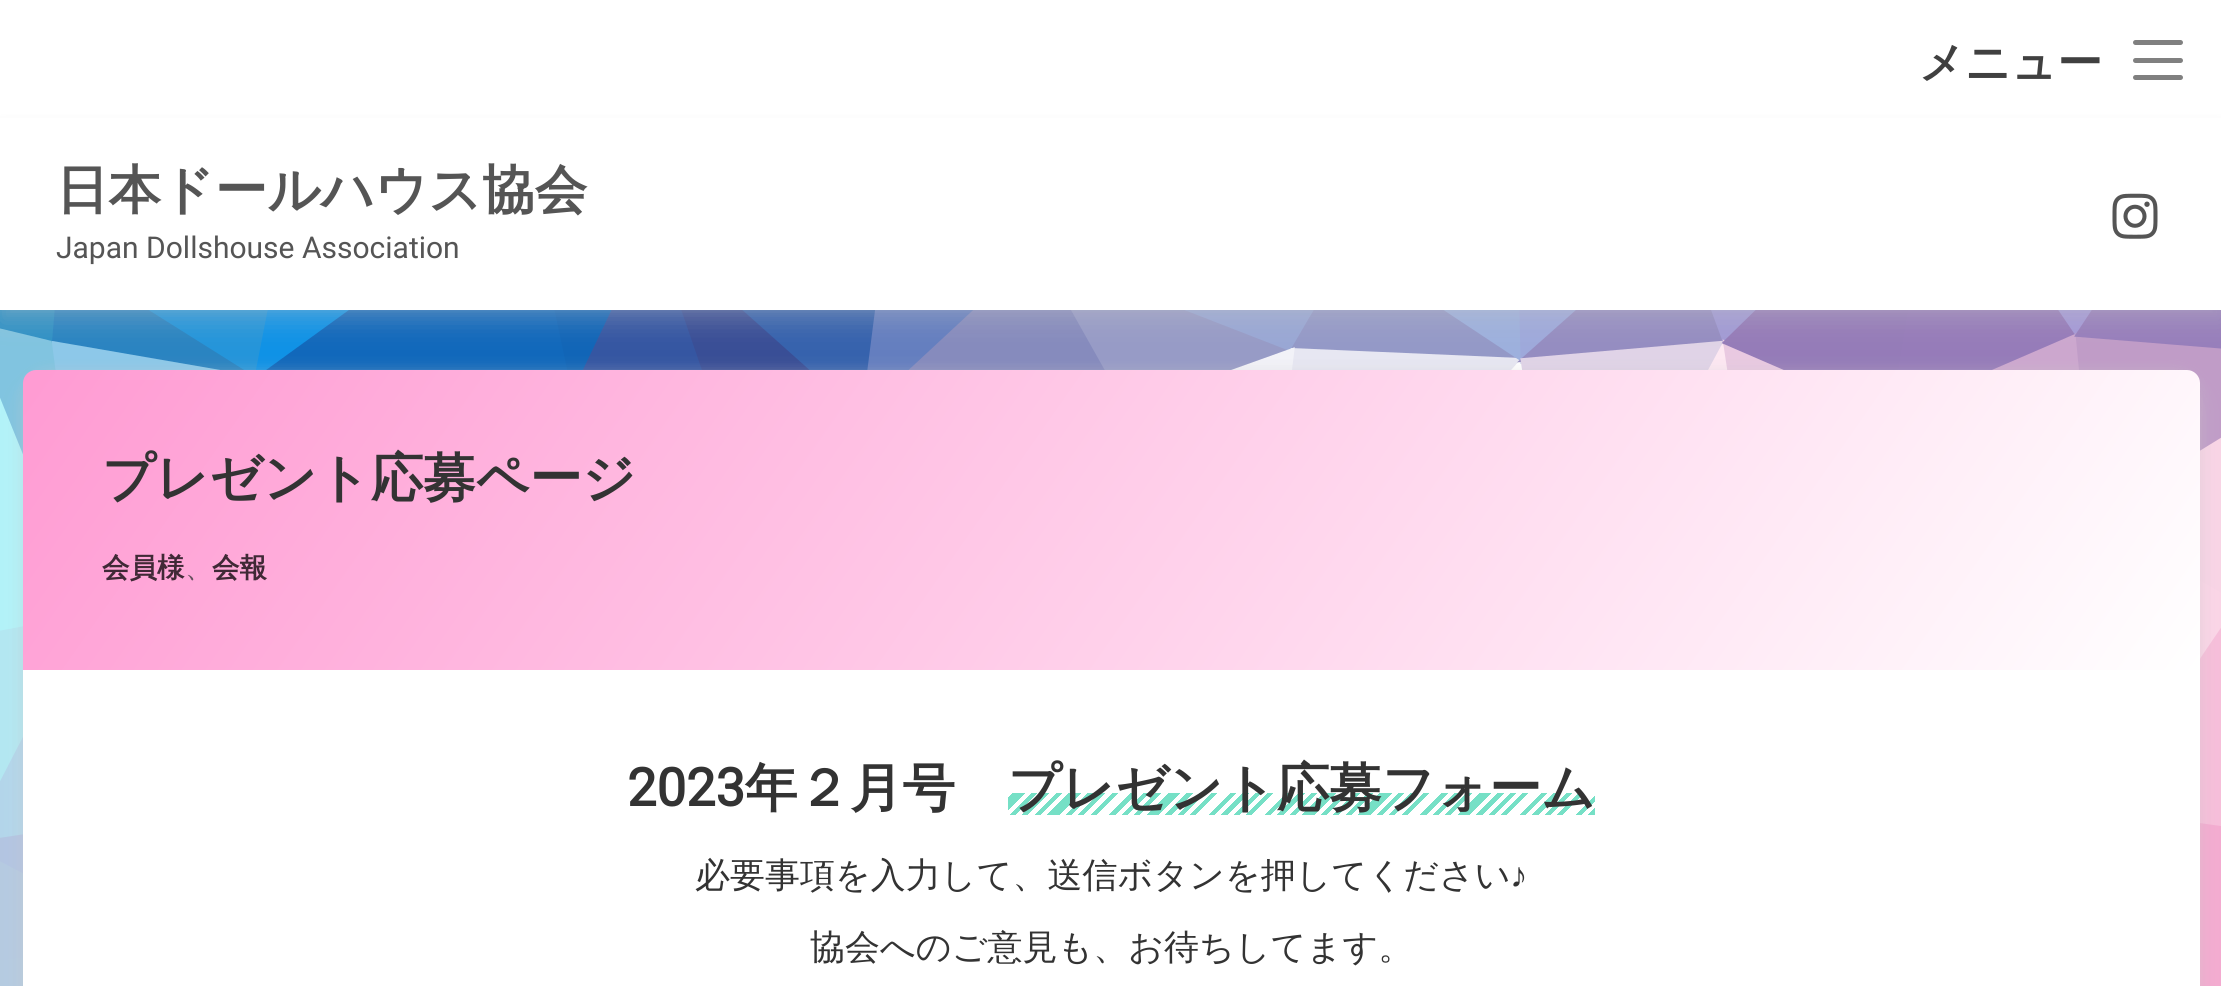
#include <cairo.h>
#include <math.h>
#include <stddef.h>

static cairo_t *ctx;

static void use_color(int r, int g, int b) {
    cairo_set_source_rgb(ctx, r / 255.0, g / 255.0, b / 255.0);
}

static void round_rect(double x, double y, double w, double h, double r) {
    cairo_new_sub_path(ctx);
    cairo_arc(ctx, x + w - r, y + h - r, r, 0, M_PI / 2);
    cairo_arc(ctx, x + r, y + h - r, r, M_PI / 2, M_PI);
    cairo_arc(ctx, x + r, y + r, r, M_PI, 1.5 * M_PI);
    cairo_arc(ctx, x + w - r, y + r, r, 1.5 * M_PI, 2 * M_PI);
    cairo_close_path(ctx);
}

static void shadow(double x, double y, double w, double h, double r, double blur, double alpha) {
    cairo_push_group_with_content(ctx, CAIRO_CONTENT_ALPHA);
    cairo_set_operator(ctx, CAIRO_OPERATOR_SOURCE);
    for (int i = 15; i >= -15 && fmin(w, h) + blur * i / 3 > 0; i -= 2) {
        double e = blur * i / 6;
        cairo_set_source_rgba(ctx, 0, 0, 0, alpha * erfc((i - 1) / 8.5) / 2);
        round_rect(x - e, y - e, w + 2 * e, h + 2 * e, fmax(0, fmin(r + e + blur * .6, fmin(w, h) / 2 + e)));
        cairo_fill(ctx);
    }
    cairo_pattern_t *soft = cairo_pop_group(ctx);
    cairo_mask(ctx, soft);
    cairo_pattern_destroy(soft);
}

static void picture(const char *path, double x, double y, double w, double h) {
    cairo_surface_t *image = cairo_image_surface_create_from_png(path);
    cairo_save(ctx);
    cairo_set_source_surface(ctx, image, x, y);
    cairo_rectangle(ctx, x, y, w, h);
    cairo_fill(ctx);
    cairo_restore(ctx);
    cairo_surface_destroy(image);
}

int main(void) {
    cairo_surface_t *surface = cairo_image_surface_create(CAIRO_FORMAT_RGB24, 2221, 986);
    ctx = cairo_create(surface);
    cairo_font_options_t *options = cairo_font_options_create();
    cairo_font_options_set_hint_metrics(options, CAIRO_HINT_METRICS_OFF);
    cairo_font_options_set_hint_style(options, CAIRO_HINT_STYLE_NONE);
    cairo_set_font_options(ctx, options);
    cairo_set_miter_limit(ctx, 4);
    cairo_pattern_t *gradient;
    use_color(255, 255, 255);
    cairo_paint(ctx);
    cairo_select_font_face(ctx, "WenQuanYi Zen Hei", CAIRO_FONT_SLANT_NORMAL, CAIRO_FONT_WEIGHT_BOLD);
    cairo_set_font_size(ctx, 45);
    use_color(64, 64, 64);
    cairo_move_to(ctx, 1919, 78);
    cairo_show_text(ctx, "メニュー");
    use_color(128, 128, 128);
    round_rect(2133, 40, 50, 5, 2.5);
    cairo_fill(ctx);
    round_rect(2133, 58, 50, 5, 2.5);
    cairo_fill(ctx);
    round_rect(2133, 75, 50, 5, 2.5);
    cairo_fill(ctx);
    picture("img2.png", 0, 310, 2221, 676);
    use_color(196, 196, 196);
    shadow(0, 125, 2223, 185, 0, 6, 0.25);
    shadow(0, 138, 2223, 185, 0, 12.5, 0.25);
    use_color(255, 255, 255);
    cairo_rectangle(ctx, 0, 118, 2221, 192);
    cairo_fill(ctx);
    cairo_set_font_size(ctx, 52.5);
    use_color(85, 85, 85);
    cairo_move_to(ctx, 56, 208);
    cairo_show_text(ctx, "日本ドールハウス協会");
    cairo_select_font_face(ctx, "Roboto", CAIRO_FONT_SLANT_NORMAL, CAIRO_FONT_WEIGHT_NORMAL);
    cairo_set_font_size(ctx, 30);
    cairo_move_to(ctx, 56, 258);
    cairo_show_text(ctx, "Japan Dollshouse Association");
    picture("img1.png", 2112, 193, 46, 46);
    use_color(196, 196, 196);
    shadow(23, 370, 2177, 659, 25, 6, 0.25);
    shadow(23, 383, 2177, 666, 25, 12.5, 0.25);
    use_color(255, 255, 255);
    cairo_new_path(ctx);
    cairo_move_to(ctx, 48, 370);
    cairo_line_to(ctx, 2175, 370);
    cairo_curve_to(ctx, 2189, 370, 2200, 381, 2200, 395);
    cairo_line_to(ctx, 2200, 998);
    cairo_curve_to(ctx, 2200, 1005, 2194, 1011, 2187, 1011);
    cairo_line_to(ctx, 36, 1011);
    cairo_curve_to(ctx, 29, 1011, 23, 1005, 23, 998);
    cairo_line_to(ctx, 23, 395);
    cairo_curve_to(ctx, 23, 381, 34, 370, 48, 370);
    cairo_close_path(ctx);
    cairo_fill(ctx);
    gradient = cairo_pattern_create_linear(310, -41, 1912, 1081);
    cairo_pattern_add_color_stop_rgba(gradient, 0, 1, 0.608, 0.827, 1);
    cairo_pattern_add_color_stop_rgba(gradient, 1, 1, 1, 1, 1);
    cairo_set_source(ctx, gradient);
    cairo_pattern_destroy(gradient);
    cairo_new_path(ctx);
    cairo_move_to(ctx, 36, 370);
    cairo_line_to(ctx, 2187, 370);
    cairo_curve_to(ctx, 2194, 370, 2200, 376, 2200, 383);
    cairo_line_to(ctx, 2200, 670);
    cairo_line_to(ctx, 23, 670);
    cairo_line_to(ctx, 23, 383);
    cairo_curve_to(ctx, 23, 376, 29, 370, 36, 370);
    cairo_close_path(ctx);
    cairo_fill(ctx);
    cairo_select_font_face(ctx, "WenQuanYi Zen Hei", CAIRO_FONT_SLANT_NORMAL, CAIRO_FONT_WEIGHT_BOLD);
    cairo_set_font_size(ctx, 52.5);
    use_color(51, 51, 51);
    cairo_move_to(ctx, 102, 496);
    cairo_show_text(ctx, "プレゼント応募ページ");
    cairo_set_font_size(ctx, 27.5);
    use_color(64, 41, 54);
    cairo_move_to(ctx, 102, 577);
    cairo_show_text(ctx, "会員様");
    cairo_select_font_face(ctx, "WenQuanYi Zen Hei Medium", CAIRO_FONT_SLANT_NORMAL, CAIRO_FONT_WEIGHT_NORMAL);
    use_color(102, 80, 93);
    cairo_move_to(ctx, 185, 577);
    cairo_show_text(ctx, "、");
    cairo_select_font_face(ctx, "WenQuanYi Zen Hei", CAIRO_FONT_SLANT_NORMAL, CAIRO_FONT_WEIGHT_BOLD);
    use_color(64, 41, 54);
    cairo_move_to(ctx, 212, 577);
    cairo_show_text(ctx, "会報");
    cairo_select_font_face(ctx, "Roboto", CAIRO_FONT_SLANT_NORMAL, CAIRO_FONT_WEIGHT_BOLD);
    cairo_set_font_size(ctx, 52.5);
    use_color(51, 51, 51);
    cairo_move_to(ctx, 627, 806);
    cairo_show_text(ctx, "2023");
    cairo_select_font_face(ctx, "WenQuanYi Zen Hei", CAIRO_FONT_SLANT_NORMAL, CAIRO_FONT_WEIGHT_BOLD);
    cairo_move_to(ctx, 745, 806);
    cairo_show_text(ctx, "年２月号");
    gradient = cairo_pattern_create_linear(1453, 956, 1142, 645);
    cairo_pattern_add_color_stop_rgba(gradient, 0, 0.463, 0.878, 0.776, 1);
    cairo_pattern_add_color_stop_rgba(gradient, 0.01, 0.463, 0.878, 0.776, 1);
    cairo_pattern_add_color_stop_rgba(gradient, 0.01, 1, 1, 1, 1);
    cairo_pattern_add_color_stop_rgba(gradient, 0.02, 1, 1, 1, 1);
    cairo_pattern_add_color_stop_rgba(gradient, 0.02, 0.463, 0.878, 0.776, 1);
    cairo_pattern_add_color_stop_rgba(gradient, 0.03, 0.463, 0.878, 0.776, 1);
    cairo_pattern_add_color_stop_rgba(gradient, 0.03, 1, 1, 1, 1);
    cairo_pattern_add_color_stop_rgba(gradient, 0.05, 1, 1, 1, 1);
    cairo_pattern_add_color_stop_rgba(gradient, 0.05, 0.463, 0.878, 0.776, 1);
    cairo_pattern_add_color_stop_rgba(gradient, 0.06, 0.463, 0.878, 0.776, 1);
    cairo_pattern_add_color_stop_rgba(gradient, 0.06, 1, 1, 1, 1);
    cairo_pattern_add_color_stop_rgba(gradient, 0.07, 1, 1, 1, 1);
    cairo_pattern_add_color_stop_rgba(gradient, 0.07, 0.463, 0.878, 0.776, 1);
    cairo_pattern_add_color_stop_rgba(gradient, 0.08, 0.463, 0.878, 0.776, 1);
    cairo_pattern_add_color_stop_rgba(gradient, 0.08, 1, 1, 1, 1);
    cairo_pattern_add_color_stop_rgba(gradient, 0.09, 1, 1, 1, 1);
    cairo_pattern_add_color_stop_rgba(gradient, 0.09, 0.463, 0.878, 0.776, 1);
    cairo_pattern_add_color_stop_rgba(gradient, 0.1, 0.463, 0.878, 0.776, 1);
    cairo_pattern_add_color_stop_rgba(gradient, 0.1, 1, 1, 1, 1);
    cairo_pattern_add_color_stop_rgba(gradient, 0.11, 1, 1, 1, 1);
    cairo_pattern_add_color_stop_rgba(gradient, 0.11, 0.463, 0.878, 0.776, 1);
    cairo_pattern_add_color_stop_rgba(gradient, 0.12, 0.463, 0.878, 0.776, 1);
    cairo_pattern_add_color_stop_rgba(gradient, 0.12, 1, 1, 1, 1);
    cairo_pattern_add_color_stop_rgba(gradient, 0.14, 1, 1, 1, 1);
    cairo_pattern_add_color_stop_rgba(gradient, 0.14, 0.463, 0.878, 0.776, 1);
    cairo_pattern_add_color_stop_rgba(gradient, 0.15, 0.463, 0.878, 0.776, 1);
    cairo_pattern_add_color_stop_rgba(gradient, 0.15, 1, 1, 1, 1);
    cairo_pattern_add_color_stop_rgba(gradient, 0.16, 1, 1, 1, 1);
    cairo_pattern_add_color_stop_rgba(gradient, 0.16, 0.463, 0.878, 0.776, 1);
    cairo_pattern_add_color_stop_rgba(gradient, 0.17, 0.463, 0.878, 0.776, 1);
    cairo_pattern_add_color_stop_rgba(gradient, 0.17, 1, 1, 1, 1);
    cairo_pattern_add_color_stop_rgba(gradient, 0.18, 1, 1, 1, 1);
    cairo_pattern_add_color_stop_rgba(gradient, 0.18, 0.463, 0.878, 0.776, 1);
    cairo_pattern_add_color_stop_rgba(gradient, 0.19, 0.463, 0.878, 0.776, 1);
    cairo_pattern_add_color_stop_rgba(gradient, 0.19, 1, 1, 1, 1);
    cairo_pattern_add_color_stop_rgba(gradient, 0.2, 1, 1, 1, 1);
    cairo_pattern_add_color_stop_rgba(gradient, 0.2, 0.463, 0.878, 0.776, 1);
    cairo_pattern_add_color_stop_rgba(gradient, 0.22, 0.463, 0.878, 0.776, 1);
    cairo_pattern_add_color_stop_rgba(gradient, 0.22, 1, 1, 1, 1);
    cairo_pattern_add_color_stop_rgba(gradient, 0.23, 1, 1, 1, 1);
    cairo_pattern_add_color_stop_rgba(gradient, 0.23, 0.463, 0.878, 0.776, 1);
    cairo_pattern_add_color_stop_rgba(gradient, 0.24, 0.463, 0.878, 0.776, 1);
    cairo_pattern_add_color_stop_rgba(gradient, 0.24, 1, 1, 1, 1);
    cairo_pattern_add_color_stop_rgba(gradient, 0.25, 1, 1, 1, 1);
    cairo_pattern_add_color_stop_rgba(gradient, 0.25, 0.463, 0.878, 0.776, 1);
    cairo_pattern_add_color_stop_rgba(gradient, 0.26, 0.463, 0.878, 0.776, 1);
    cairo_pattern_add_color_stop_rgba(gradient, 0.26, 1, 1, 1, 1);
    cairo_pattern_add_color_stop_rgba(gradient, 0.27, 1, 1, 1, 1);
    cairo_pattern_add_color_stop_rgba(gradient, 0.27, 0.463, 0.878, 0.776, 1);
    cairo_pattern_add_color_stop_rgba(gradient, 0.28, 0.463, 0.878, 0.776, 1);
    cairo_pattern_add_color_stop_rgba(gradient, 0.28, 1, 1, 1, 1);
    cairo_pattern_add_color_stop_rgba(gradient, 0.3, 1, 1, 1, 1);
    cairo_pattern_add_color_stop_rgba(gradient, 0.3, 0.463, 0.878, 0.776, 1);
    cairo_pattern_add_color_stop_rgba(gradient, 0.31, 0.463, 0.878, 0.776, 1);
    cairo_pattern_add_color_stop_rgba(gradient, 0.31, 1, 1, 1, 1);
    cairo_pattern_add_color_stop_rgba(gradient, 0.32, 1, 1, 1, 1);
    cairo_pattern_add_color_stop_rgba(gradient, 0.32, 0.463, 0.878, 0.776, 1);
    cairo_pattern_add_color_stop_rgba(gradient, 0.33, 0.463, 0.878, 0.776, 1);
    cairo_pattern_add_color_stop_rgba(gradient, 0.33, 1, 1, 1, 1);
    cairo_pattern_add_color_stop_rgba(gradient, 0.34, 1, 1, 1, 1);
    cairo_pattern_add_color_stop_rgba(gradient, 0.34, 0.463, 0.878, 0.776, 1);
    cairo_pattern_add_color_stop_rgba(gradient, 0.35, 0.463, 0.878, 0.776, 1);
    cairo_pattern_add_color_stop_rgba(gradient, 0.35, 1, 1, 1, 1);
    cairo_pattern_add_color_stop_rgba(gradient, 0.36, 1, 1, 1, 1);
    cairo_pattern_add_color_stop_rgba(gradient, 0.36, 0.463, 0.878, 0.776, 1);
    cairo_pattern_add_color_stop_rgba(gradient, 0.38, 0.463, 0.878, 0.776, 1);
    cairo_pattern_add_color_stop_rgba(gradient, 0.38, 1, 1, 1, 1);
    cairo_pattern_add_color_stop_rgba(gradient, 0.39, 1, 1, 1, 1);
    cairo_pattern_add_color_stop_rgba(gradient, 0.39, 0.463, 0.878, 0.776, 1);
    cairo_pattern_add_color_stop_rgba(gradient, 0.4, 0.463, 0.878, 0.776, 1);
    cairo_pattern_add_color_stop_rgba(gradient, 0.4, 1, 1, 1, 1);
    cairo_pattern_add_color_stop_rgba(gradient, 0.41, 1, 1, 1, 1);
    cairo_pattern_add_color_stop_rgba(gradient, 0.41, 0.463, 0.878, 0.776, 1);
    cairo_pattern_add_color_stop_rgba(gradient, 0.42, 0.463, 0.878, 0.776, 1);
    cairo_pattern_add_color_stop_rgba(gradient, 0.42, 1, 1, 1, 1);
    cairo_pattern_add_color_stop_rgba(gradient, 0.43, 1, 1, 1, 1);
    cairo_pattern_add_color_stop_rgba(gradient, 0.43, 0.463, 0.878, 0.776, 1);
    cairo_pattern_add_color_stop_rgba(gradient, 0.44, 0.463, 0.878, 0.776, 1);
    cairo_pattern_add_color_stop_rgba(gradient, 0.44, 1, 1, 1, 1);
    cairo_pattern_add_color_stop_rgba(gradient, 0.45, 1, 1, 1, 1);
    cairo_pattern_add_color_stop_rgba(gradient, 0.45, 0.463, 0.878, 0.776, 1);
    cairo_pattern_add_color_stop_rgba(gradient, 0.47, 0.463, 0.878, 0.776, 1);
    cairo_pattern_add_color_stop_rgba(gradient, 0.47, 1, 1, 1, 1);
    cairo_pattern_add_color_stop_rgba(gradient, 0.48, 1, 1, 1, 1);
    cairo_pattern_add_color_stop_rgba(gradient, 0.48, 0.463, 0.878, 0.776, 1);
    cairo_pattern_add_color_stop_rgba(gradient, 0.49, 0.463, 0.878, 0.776, 1);
    cairo_pattern_add_color_stop_rgba(gradient, 0.49, 1, 1, 1, 1);
    cairo_pattern_add_color_stop_rgba(gradient, 0.5, 1, 1, 1, 1);
    cairo_pattern_add_color_stop_rgba(gradient, 0.5, 0.463, 0.878, 0.776, 1);
    cairo_pattern_add_color_stop_rgba(gradient, 0.51, 0.463, 0.878, 0.776, 1);
    cairo_pattern_add_color_stop_rgba(gradient, 0.51, 1, 1, 1, 1);
    cairo_pattern_add_color_stop_rgba(gradient, 0.52, 1, 1, 1, 1);
    cairo_pattern_add_color_stop_rgba(gradient, 0.52, 0.463, 0.878, 0.776, 1);
    cairo_pattern_add_color_stop_rgba(gradient, 0.53, 0.463, 0.878, 0.776, 1);
    cairo_pattern_add_color_stop_rgba(gradient, 0.53, 1, 1, 1, 1);
    cairo_pattern_add_color_stop_rgba(gradient, 0.55, 1, 1, 1, 1);
    cairo_pattern_add_color_stop_rgba(gradient, 0.55, 0.463, 0.878, 0.776, 1);
    cairo_pattern_add_color_stop_rgba(gradient, 0.56, 0.463, 0.878, 0.776, 1);
    cairo_pattern_add_color_stop_rgba(gradient, 0.56, 1, 1, 1, 1);
    cairo_pattern_add_color_stop_rgba(gradient, 0.57, 1, 1, 1, 1);
    cairo_pattern_add_color_stop_rgba(gradient, 0.57, 0.463, 0.878, 0.776, 1);
    cairo_pattern_add_color_stop_rgba(gradient, 0.58, 0.463, 0.878, 0.776, 1);
    cairo_pattern_add_color_stop_rgba(gradient, 0.58, 1, 1, 1, 1);
    cairo_pattern_add_color_stop_rgba(gradient, 0.59, 1, 1, 1, 1);
    cairo_pattern_add_color_stop_rgba(gradient, 0.59, 0.463, 0.878, 0.776, 1);
    cairo_pattern_add_color_stop_rgba(gradient, 0.6, 0.463, 0.878, 0.776, 1);
    cairo_pattern_add_color_stop_rgba(gradient, 0.6, 1, 1, 1, 1);
    cairo_pattern_add_color_stop_rgba(gradient, 0.61, 1, 1, 1, 1);
    cairo_pattern_add_color_stop_rgba(gradient, 0.61, 0.463, 0.878, 0.776, 1);
    cairo_pattern_add_color_stop_rgba(gradient, 0.62, 0.463, 0.878, 0.776, 1);
    cairo_pattern_add_color_stop_rgba(gradient, 0.62, 1, 1, 1, 1);
    cairo_pattern_add_color_stop_rgba(gradient, 0.64, 1, 1, 1, 1);
    cairo_pattern_add_color_stop_rgba(gradient, 0.64, 0.463, 0.878, 0.776, 1);
    cairo_pattern_add_color_stop_rgba(gradient, 0.65, 0.463, 0.878, 0.776, 1);
    cairo_pattern_add_color_stop_rgba(gradient, 0.65, 1, 1, 1, 1);
    cairo_pattern_add_color_stop_rgba(gradient, 0.66, 1, 1, 1, 1);
    cairo_pattern_add_color_stop_rgba(gradient, 0.66, 0.463, 0.878, 0.776, 1);
    cairo_pattern_add_color_stop_rgba(gradient, 0.67, 0.463, 0.878, 0.776, 1);
    cairo_pattern_add_color_stop_rgba(gradient, 0.67, 1, 1, 1, 1);
    cairo_pattern_add_color_stop_rgba(gradient, 0.68, 1, 1, 1, 1);
    cairo_pattern_add_color_stop_rgba(gradient, 0.68, 0.463, 0.878, 0.776, 1);
    cairo_pattern_add_color_stop_rgba(gradient, 0.69, 0.463, 0.878, 0.776, 1);
    cairo_pattern_add_color_stop_rgba(gradient, 0.69, 1, 1, 1, 1);
    cairo_pattern_add_color_stop_rgba(gradient, 0.7, 1, 1, 1, 1);
    cairo_pattern_add_color_stop_rgba(gradient, 0.7, 0.463, 0.878, 0.776, 1);
    cairo_pattern_add_color_stop_rgba(gradient, 0.72, 0.463, 0.878, 0.776, 1);
    cairo_pattern_add_color_stop_rgba(gradient, 0.72, 1, 1, 1, 1);
    cairo_pattern_add_color_stop_rgba(gradient, 0.73, 1, 1, 1, 1);
    cairo_pattern_add_color_stop_rgba(gradient, 0.73, 0.463, 0.878, 0.776, 1);
    cairo_pattern_add_color_stop_rgba(gradient, 0.74, 0.463, 0.878, 0.776, 1);
    cairo_pattern_add_color_stop_rgba(gradient, 0.74, 1, 1, 1, 1);
    cairo_pattern_add_color_stop_rgba(gradient, 0.75, 1, 1, 1, 1);
    cairo_pattern_add_color_stop_rgba(gradient, 0.75, 0.463, 0.878, 0.776, 1);
    cairo_pattern_add_color_stop_rgba(gradient, 0.76, 0.463, 0.878, 0.776, 1);
    cairo_pattern_add_color_stop_rgba(gradient, 0.76, 1, 1, 1, 1);
    cairo_pattern_add_color_stop_rgba(gradient, 0.77, 1, 1, 1, 1);
    cairo_pattern_add_color_stop_rgba(gradient, 0.77, 0.463, 0.878, 0.776, 1);
    cairo_pattern_add_color_stop_rgba(gradient, 0.78, 0.463, 0.878, 0.776, 1);
    cairo_pattern_add_color_stop_rgba(gradient, 0.78, 1, 1, 1, 1);
    cairo_pattern_add_color_stop_rgba(gradient, 0.8, 1, 1, 1, 1);
    cairo_pattern_add_color_stop_rgba(gradient, 0.8, 0.463, 0.878, 0.776, 1);
    cairo_pattern_add_color_stop_rgba(gradient, 0.81, 0.463, 0.878, 0.776, 1);
    cairo_pattern_add_color_stop_rgba(gradient, 0.81, 1, 1, 1, 1);
    cairo_pattern_add_color_stop_rgba(gradient, 0.82, 1, 1, 1, 1);
    cairo_pattern_add_color_stop_rgba(gradient, 0.82, 0.463, 0.878, 0.776, 1);
    cairo_pattern_add_color_stop_rgba(gradient, 0.83, 0.463, 0.878, 0.776, 1);
    cairo_pattern_add_color_stop_rgba(gradient, 0.83, 1, 1, 1, 1);
    cairo_pattern_add_color_stop_rgba(gradient, 0.84, 1, 1, 1, 1);
    cairo_pattern_add_color_stop_rgba(gradient, 0.84, 0.463, 0.878, 0.776, 1);
    cairo_pattern_add_color_stop_rgba(gradient, 0.85, 0.463, 0.878, 0.776, 1);
    cairo_pattern_add_color_stop_rgba(gradient, 0.85, 1, 1, 1, 1);
    cairo_pattern_add_color_stop_rgba(gradient, 0.86, 1, 1, 1, 1);
    cairo_pattern_add_color_stop_rgba(gradient, 0.86, 0.463, 0.878, 0.776, 1);
    cairo_pattern_add_color_stop_rgba(gradient, 0.88, 0.463, 0.878, 0.776, 1);
    cairo_pattern_add_color_stop_rgba(gradient, 0.88, 1, 1, 1, 1);
    cairo_pattern_add_color_stop_rgba(gradient, 0.89, 1, 1, 1, 1);
    cairo_pattern_add_color_stop_rgba(gradient, 0.89, 0.463, 0.878, 0.776, 1);
    cairo_pattern_add_color_stop_rgba(gradient, 0.9, 0.463, 0.878, 0.776, 1);
    cairo_pattern_add_color_stop_rgba(gradient, 0.9, 1, 1, 1, 1);
    cairo_pattern_add_color_stop_rgba(gradient, 0.91, 1, 1, 1, 1);
    cairo_pattern_add_color_stop_rgba(gradient, 0.91, 0.463, 0.878, 0.776, 1);
    cairo_pattern_add_color_stop_rgba(gradient, 0.92, 0.463, 0.878, 0.776, 1);
    cairo_pattern_add_color_stop_rgba(gradient, 0.92, 1, 1, 1, 1);
    cairo_pattern_add_color_stop_rgba(gradient, 0.93, 1, 1, 1, 1);
    cairo_pattern_add_color_stop_rgba(gradient, 0.93, 0.463, 0.878, 0.776, 1);
    cairo_pattern_add_color_stop_rgba(gradient, 0.94, 0.463, 0.878, 0.776, 1);
    cairo_pattern_add_color_stop_rgba(gradient, 0.94, 1, 1, 1, 1);
    cairo_pattern_add_color_stop_rgba(gradient, 0.95, 1, 1, 1, 1);
    cairo_pattern_add_color_stop_rgba(gradient, 0.95, 0.463, 0.878, 0.776, 1);
    cairo_pattern_add_color_stop_rgba(gradient, 0.97, 0.463, 0.878, 0.776, 1);
    cairo_pattern_add_color_stop_rgba(gradient, 0.97, 1, 1, 1, 1);
    cairo_pattern_add_color_stop_rgba(gradient, 0.98, 1, 1, 1, 1);
    cairo_pattern_add_color_stop_rgba(gradient, 0.98, 0.463, 0.878, 0.776, 1);
    cairo_pattern_add_color_stop_rgba(gradient, 0.99, 0.463, 0.878, 0.776, 1);
    cairo_pattern_add_color_stop_rgba(gradient, 0.99, 1, 1, 1, 1);
    cairo_pattern_add_color_stop_rgba(gradient, 1, 1, 1, 1, 1);
    cairo_set_source(ctx, gradient);
    cairo_pattern_destroy(gradient);
    cairo_rectangle(ctx, 1008, 793, 587, 22);
    cairo_fill(ctx);
    use_color(51, 51, 51);
    cairo_move_to(ctx, 1008, 806);
    cairo_show_text(ctx, "プレゼント応募フォーム");
    cairo_select_font_face(ctx, "WenQuanYi Zen Hei Medium", CAIRO_FONT_SLANT_NORMAL, CAIRO_FONT_WEIGHT_NORMAL);
    cairo_set_font_size(ctx, 35);
    cairo_move_to(ctx, 695, 887);
    cairo_show_text(ctx, "必要事項を入力して、送信ボタンを押してください");
    cairo_select_font_face(ctx, "Liberation Sans", CAIRO_FONT_SLANT_NORMAL, CAIRO_FONT_WEIGHT_NORMAL);
    cairo_move_to(ctx, 1510, 887);
    cairo_show_text(ctx, "♪");
    cairo_select_font_face(ctx, "WenQuanYi Zen Hei Medium", CAIRO_FONT_SLANT_NORMAL, CAIRO_FONT_WEIGHT_NORMAL);
    cairo_move_to(ctx, 810, 959);
    cairo_show_text(ctx, "協会へのご意見も、お待ちしてます。");
    cairo_surface_write_to_png(surface, "result.png");
    cairo_font_options_destroy(options);
    cairo_destroy(ctx);
    cairo_surface_destroy(surface);
    return 0;
}
